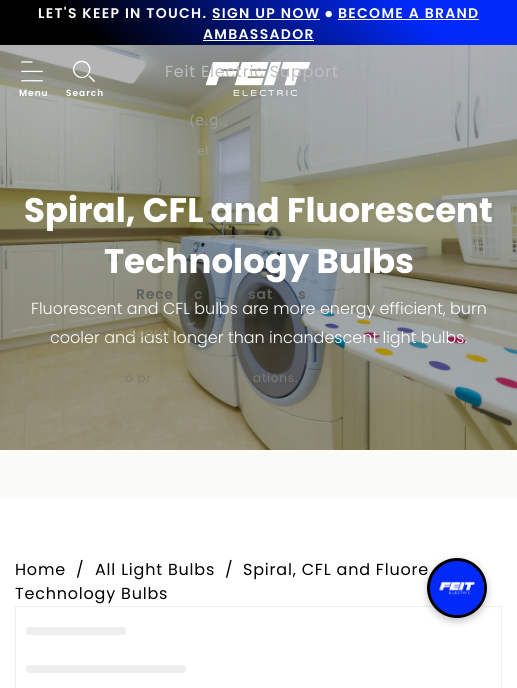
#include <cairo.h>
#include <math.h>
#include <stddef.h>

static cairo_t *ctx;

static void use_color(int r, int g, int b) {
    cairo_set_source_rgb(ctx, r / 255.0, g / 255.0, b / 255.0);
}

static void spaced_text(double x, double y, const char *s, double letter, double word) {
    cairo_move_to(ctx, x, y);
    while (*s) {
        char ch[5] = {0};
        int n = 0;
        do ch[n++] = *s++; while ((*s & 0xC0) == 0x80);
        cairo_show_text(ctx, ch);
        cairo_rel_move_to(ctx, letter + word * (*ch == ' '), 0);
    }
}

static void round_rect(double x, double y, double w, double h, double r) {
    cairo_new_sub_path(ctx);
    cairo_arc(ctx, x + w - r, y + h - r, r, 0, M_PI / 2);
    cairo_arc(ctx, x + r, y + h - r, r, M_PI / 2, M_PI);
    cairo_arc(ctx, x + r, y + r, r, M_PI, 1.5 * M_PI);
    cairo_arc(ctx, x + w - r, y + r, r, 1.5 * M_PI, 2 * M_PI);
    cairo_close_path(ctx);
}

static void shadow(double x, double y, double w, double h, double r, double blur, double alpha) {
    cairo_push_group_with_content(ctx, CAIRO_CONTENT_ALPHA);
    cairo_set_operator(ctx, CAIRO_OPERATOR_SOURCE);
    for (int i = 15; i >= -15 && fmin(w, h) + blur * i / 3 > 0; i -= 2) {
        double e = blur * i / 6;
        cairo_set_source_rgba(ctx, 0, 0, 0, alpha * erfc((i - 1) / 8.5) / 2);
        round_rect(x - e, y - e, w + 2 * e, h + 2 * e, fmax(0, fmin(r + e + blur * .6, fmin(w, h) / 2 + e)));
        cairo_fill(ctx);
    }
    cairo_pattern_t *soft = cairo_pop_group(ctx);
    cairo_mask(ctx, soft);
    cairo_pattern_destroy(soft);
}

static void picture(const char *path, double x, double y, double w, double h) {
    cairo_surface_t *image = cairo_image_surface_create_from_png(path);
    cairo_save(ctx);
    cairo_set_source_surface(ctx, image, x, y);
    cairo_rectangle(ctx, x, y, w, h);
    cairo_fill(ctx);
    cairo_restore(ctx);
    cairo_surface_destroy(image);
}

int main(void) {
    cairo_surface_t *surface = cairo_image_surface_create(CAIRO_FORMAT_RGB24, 517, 688);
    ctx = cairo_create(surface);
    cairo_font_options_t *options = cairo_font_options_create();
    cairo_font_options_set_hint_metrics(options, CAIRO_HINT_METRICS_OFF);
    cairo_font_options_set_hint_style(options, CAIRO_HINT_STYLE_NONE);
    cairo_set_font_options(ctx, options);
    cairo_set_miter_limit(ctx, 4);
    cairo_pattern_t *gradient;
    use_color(255, 255, 255);
    cairo_paint(ctx);
    gradient = cairo_pattern_create_linear(118, 163, 399, -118);
    cairo_pattern_add_color_stop_rgba(gradient, 0.18, 0, 0, 0, 1);
    cairo_pattern_add_color_stop_rgba(gradient, 0.8, 0, 0.161, 0.98, 1);
    cairo_set_source(ctx, gradient);
    cairo_pattern_destroy(gradient);
    cairo_rectangle(ctx, 0, 0, 517, 45);
    cairo_fill(ctx);
    cairo_select_font_face(ctx, "Poppins SemiBold", CAIRO_FONT_SLANT_NORMAL, CAIRO_FONT_WEIGHT_NORMAL);
    cairo_set_font_size(ctx, 14);
    use_color(255, 255, 255);
    spaced_text(38, 18, "LET'S KEEP IN TOUCH. SIGN UP NOW", 1.3, 0);
    cairo_select_font_face(ctx, "FreeSans", CAIRO_FONT_SLANT_NORMAL, CAIRO_FONT_WEIGHT_BOLD);
    spaced_text(325, 18, "⦁", 1.3, 0);
    cairo_select_font_face(ctx, "Poppins SemiBold", CAIRO_FONT_SLANT_NORMAL, CAIRO_FONT_WEIGHT_NORMAL);
    spaced_text(338, 18, "BECOME A BRAND", 1.3, 0);
    cairo_rectangle(ctx, 338, 19, 141, 1);
    cairo_fill(ctx);
    cairo_rectangle(ctx, 212, 19, 108, 1);
    cairo_fill(ctx);
    spaced_text(203, 39, "AMBASSADOR", 1.3, 0);
    cairo_rectangle(ctx, 203, 40, 111, 1);
    cairo_fill(ctx);
    picture("img5.png", 0, 45, 517, 405);
    picture("img1.png", 21, 61, 22, 21);
    cairo_set_font_size(ctx, 9);
    spaced_text(19, 96, "Menu", 1, 0);
    picture("img2.png", 73, 60, 22, 22);
    spaced_text(66, 96, "Search", 1, 0);
    picture("img3.png", 205, 62, 106, 34);
    cairo_select_font_face(ctx, "Poppins", CAIRO_FONT_SLANT_NORMAL, CAIRO_FONT_WEIGHT_NORMAL);
    cairo_set_font_size(ctx, 16);
    use_color(189, 191, 190);
    spaced_text(165, 77, "Feit Electric Support", 0.8, 0);
    cairo_set_font_size(ctx, 12);
    use_color(154, 158, 152);
    spaced_text(197, 155, "el", 0.8, 0);
    spaced_text(437, 155, ",", 0.8, 0);
    cairo_select_font_face(ctx, "Poppins SemiBold", CAIRO_FONT_SLANT_NORMAL, CAIRO_FONT_WEIGHT_NORMAL);
    cairo_set_font_size(ctx, 14);
    use_color(93, 97, 93);
    spaced_text(136, 299, "Rece", 0.8, 0);
    spaced_text(194, 299, "c", 0.8, 0);
    spaced_text(248, 299, "sat", 0.8, 0);
    spaced_text(298, 299, "s", 0.8, 0);
    cairo_select_font_face(ctx, "Poppins Light", CAIRO_FONT_SLANT_NORMAL, CAIRO_FONT_WEIGHT_NORMAL);
    cairo_set_font_size(ctx, 16);
    use_color(255, 255, 255);
    cairo_move_to(ctx, 50, 343);
    cairo_show_text(ctx, "cooler and last longer than incandescent light bulbs.");
    cairo_select_font_face(ctx, "Poppins", CAIRO_FONT_SLANT_NORMAL, CAIRO_FONT_WEIGHT_NORMAL);
    cairo_set_font_size(ctx, 12);
    use_color(152, 144, 114);
    spaced_text(129, 337, "Search...", 0.8, 0);
    use_color(123, 121, 107);
    spaced_text(125, 382, "o pr", 0.8, 0);
    spaced_text(253, 382, "ations.", 0.8, 0);
    cairo_rectangle(ctx, 15.5, 606.5, 486, 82);
    use_color(238, 238, 238);
    cairo_set_line_width(ctx, 1);
    cairo_stroke(ctx);
    use_color(0, 0, 0);
    shadow(427, 561, 60, 60, 30, 4, 0.24);
    cairo_set_font_size(ctx, 16);
    use_color(0, 0, 0);
    spaced_text(243, 575, "Spiral, CFL and Fluore", 0.8, 0);
    gradient = cairo_pattern_create_linear(423, 564, 491, 612);
    cairo_pattern_add_color_stop_rgba(gradient, 0, 0, 0, 0, 1);
    cairo_pattern_add_color_stop_rgba(gradient, 1, 0.239, 0.353, 0.996, 1);
    cairo_set_source(ctx, gradient);
    cairo_pattern_destroy(gradient);
    cairo_new_path(ctx);
    cairo_arc(ctx, 457, 588, 28.5, 0, 2 * M_PI);
    cairo_fill_preserve(ctx);
    use_color(0, 0, 0);
    cairo_set_line_width(ctx, 3);
    cairo_stroke(ctx);
    picture("img4.png", 430, 561, 54, 54);
    cairo_select_font_face(ctx, "Noto Sans", CAIRO_FONT_SLANT_NORMAL, CAIRO_FONT_WEIGHT_NORMAL);
    cairo_set_font_size(ctx, 15);
    use_color(154, 158, 152);
    spaced_text(190, 125, "(e.g.,", 0.75, 0);
    cairo_select_font_face(ctx, "Poppins", CAIRO_FONT_SLANT_NORMAL, CAIRO_FONT_WEIGHT_BOLD);
    cairo_set_font_size(ctx, 34);
    use_color(255, 255, 255);
    cairo_move_to(ctx, 24, 222);
    cairo_show_text(ctx, "Spiral, CFL and Fluorescent");
    cairo_move_to(ctx, 104, 273);
    cairo_show_text(ctx, "Technology Bulbs");
    cairo_select_font_face(ctx, "Poppins Light", CAIRO_FONT_SLANT_NORMAL, CAIRO_FONT_WEIGHT_NORMAL);
    cairo_set_font_size(ctx, 16);
    cairo_move_to(ctx, 31, 314);
    cairo_show_text(ctx, "Fluorescent and CFL bulbs are more energy efficient, burn");
    use_color(250, 250, 247);
    cairo_rectangle(ctx, 0, 450, 517, 48);
    cairo_fill(ctx);
    cairo_select_font_face(ctx, "Poppins", CAIRO_FONT_SLANT_NORMAL, CAIRO_FONT_WEIGHT_NORMAL);
    use_color(0, 0, 0);
    spaced_text(15, 575, "Home", 0.8, 0);
    spaced_text(76, 575, "/", 0.8, 0);
    spaced_text(95, 575, "All Light Bulbs", 0.8, 0);
    spaced_text(225, 575, "/", 0.8, 0);
    spaced_text(15, 599, "Technology Bulbs", 0.8, 0);
    use_color(238, 238, 238);
    round_rect(26, 627, 100, 8, 3);
    cairo_fill(ctx);
    round_rect(26, 665, 160, 8, 3);
    cairo_fill(ctx);
    cairo_surface_write_to_png(surface, "result.png");
    cairo_font_options_destroy(options);
    cairo_destroy(ctx);
    cairo_surface_destroy(surface);
    return 0;
}
